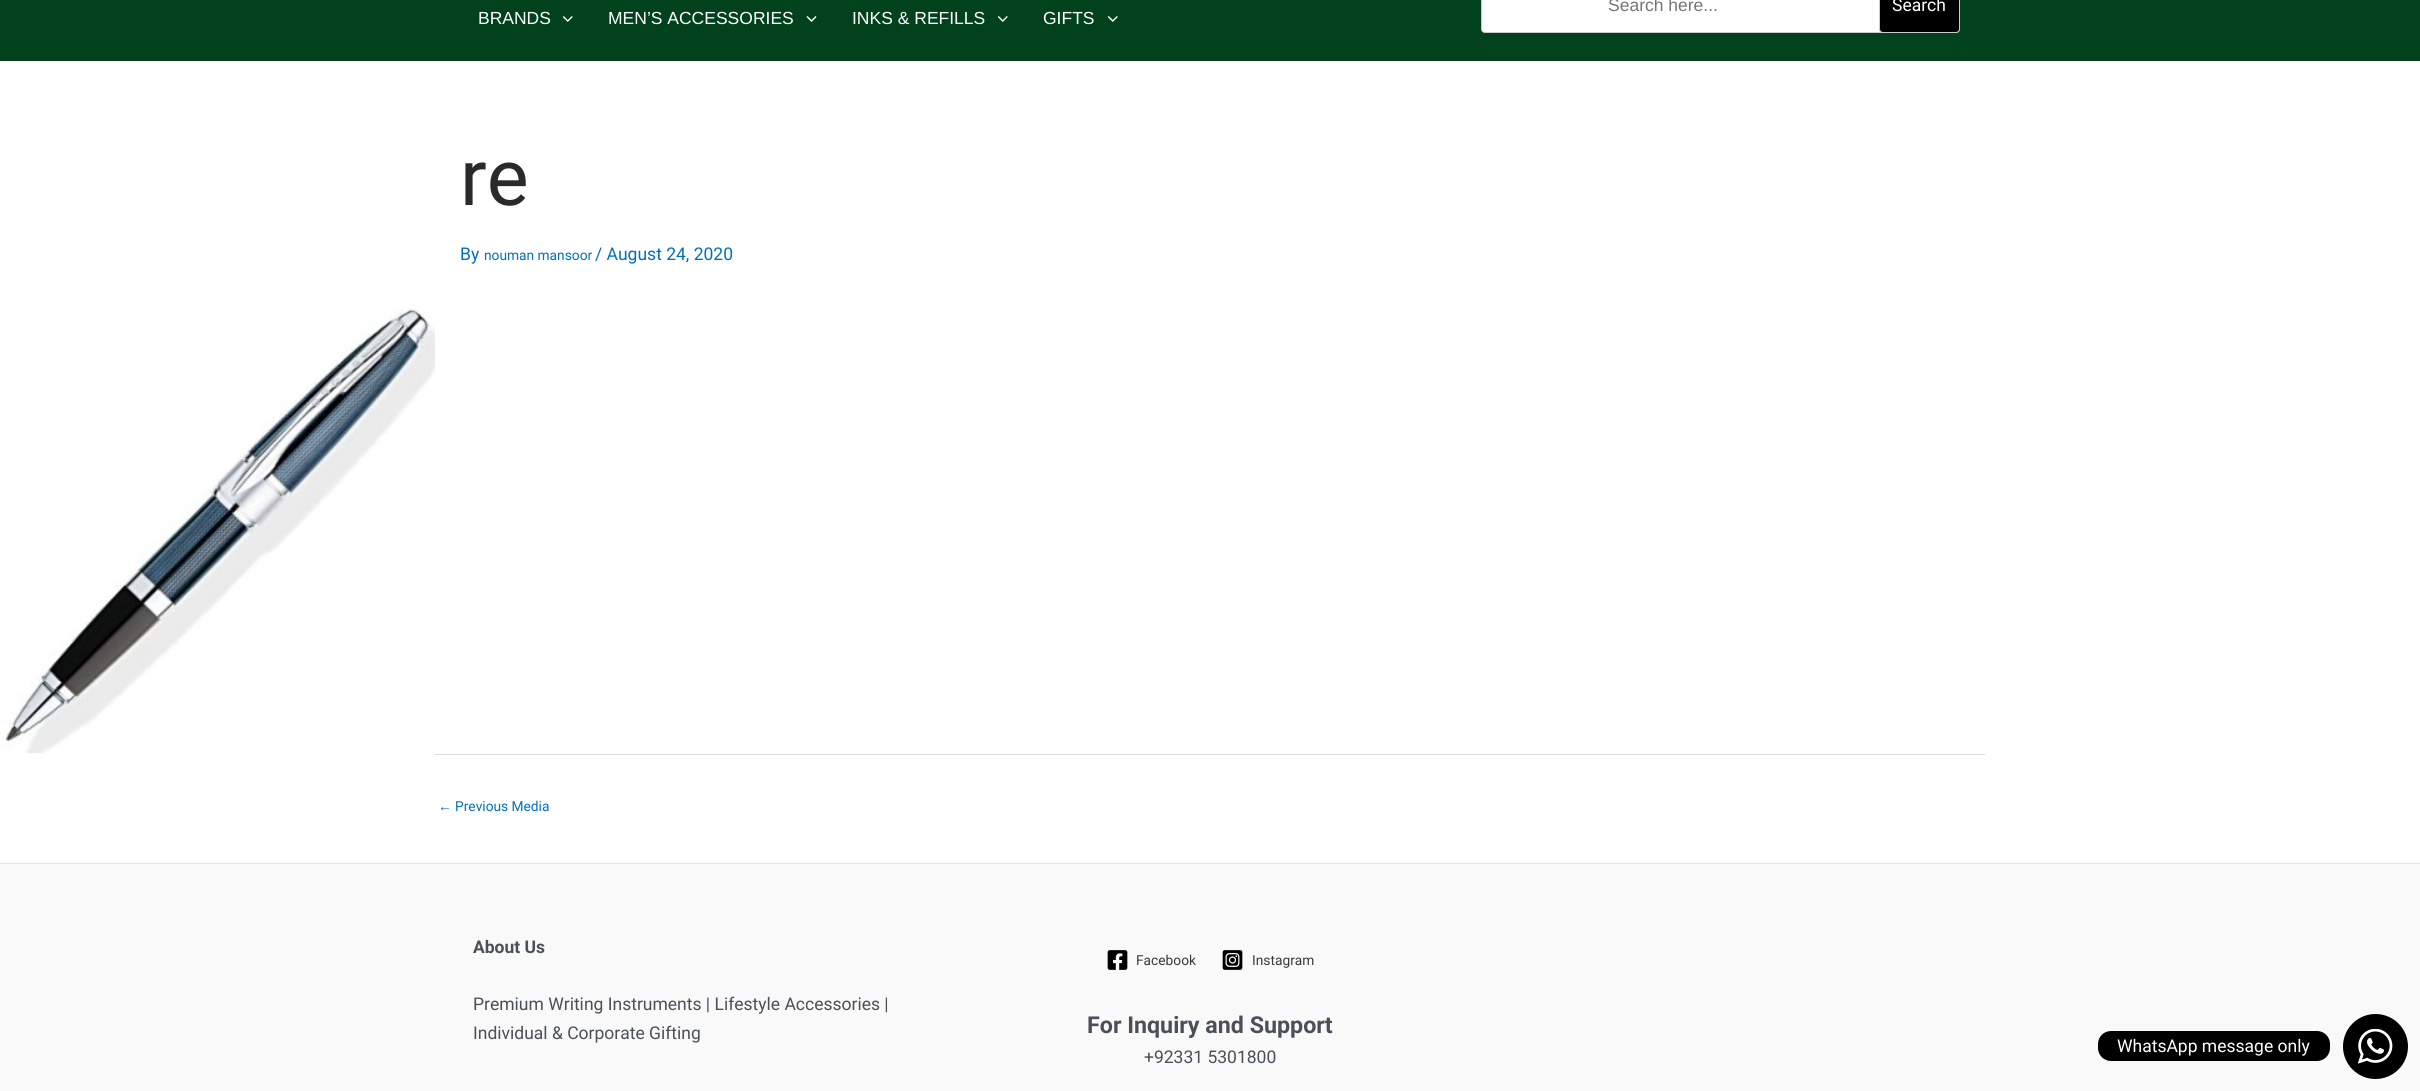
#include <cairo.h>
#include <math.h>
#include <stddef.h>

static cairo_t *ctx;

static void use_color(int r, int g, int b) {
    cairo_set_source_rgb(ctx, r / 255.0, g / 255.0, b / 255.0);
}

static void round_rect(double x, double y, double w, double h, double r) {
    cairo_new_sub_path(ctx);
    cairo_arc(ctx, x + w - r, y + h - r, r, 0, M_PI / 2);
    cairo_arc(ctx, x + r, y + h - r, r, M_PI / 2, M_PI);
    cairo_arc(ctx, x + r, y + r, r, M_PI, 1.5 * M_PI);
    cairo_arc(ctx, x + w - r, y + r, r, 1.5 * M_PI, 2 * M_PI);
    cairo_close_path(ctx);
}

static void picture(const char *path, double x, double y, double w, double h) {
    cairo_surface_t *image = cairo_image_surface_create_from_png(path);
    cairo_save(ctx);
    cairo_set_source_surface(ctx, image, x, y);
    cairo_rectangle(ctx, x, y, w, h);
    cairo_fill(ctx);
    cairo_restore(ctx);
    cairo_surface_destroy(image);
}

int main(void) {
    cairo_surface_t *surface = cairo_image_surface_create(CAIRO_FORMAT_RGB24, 2420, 1091);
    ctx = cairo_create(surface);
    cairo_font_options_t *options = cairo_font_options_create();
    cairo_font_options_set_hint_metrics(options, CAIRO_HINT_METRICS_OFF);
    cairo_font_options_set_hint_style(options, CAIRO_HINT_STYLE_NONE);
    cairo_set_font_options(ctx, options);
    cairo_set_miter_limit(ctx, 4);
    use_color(255, 255, 255);
    cairo_paint(ctx);
    use_color(1, 65, 28);
    cairo_rectangle(ctx, 0, 0, 2420, 61);
    cairo_fill(ctx);
    use_color(255, 255, 255);
    round_rect(1481.5, -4.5, 478, 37, 3.5);
    cairo_fill_preserve(ctx);
    use_color(204, 204, 204);
    cairo_set_line_width(ctx, 1);
    cairo_stroke(ctx);
    cairo_select_font_face(ctx, "Liberation Sans", CAIRO_FONT_SLANT_NORMAL, CAIRO_FONT_WEIGHT_NORMAL);
    cairo_set_font_size(ctx, 17.5);
    use_color(117, 117, 117);
    cairo_move_to(ctx, 1608, 11);
    cairo_show_text(ctx, "Search here...");
    use_color(0, 0, 0);
    round_rect(1879.5, -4.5, 80, 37, 3.5);
    cairo_fill_preserve(ctx);
    use_color(204, 204, 204);
    cairo_stroke(ctx);
    cairo_select_font_face(ctx, "Roboto", CAIRO_FONT_SLANT_NORMAL, CAIRO_FONT_WEIGHT_NORMAL);
    use_color(255, 255, 255);
    cairo_move_to(ctx, 1892, 11);
    cairo_show_text(ctx, "Search");
    cairo_select_font_face(ctx, "Liberation Sans", CAIRO_FONT_SLANT_NORMAL, CAIRO_FONT_WEIGHT_NORMAL);
    cairo_move_to(ctx, 478, 24);
    cairo_show_text(ctx, "BRANDS");
    picture("img1.png", 563, 16, 10, 6);
    cairo_move_to(ctx, 608, 24);
    cairo_show_text(ctx, "MEN’S ACCESSORIES");
    picture("img2.png", 806, 16, 11, 6);
    cairo_move_to(ctx, 852, 24);
    cairo_show_text(ctx, "INKS & REFILLS");
    picture("img1.png", 998, 16, 10, 6);
    cairo_move_to(ctx, 1043, 24);
    cairo_show_text(ctx, "GIFTS");
    picture("img1.png", 1108, 16, 10, 6);
    cairo_select_font_face(ctx, "Roboto", CAIRO_FONT_SLANT_NORMAL, CAIRO_FONT_WEIGHT_NORMAL);
    cairo_set_font_size(ctx, 79);
    use_color(43, 41, 41);
    cairo_move_to(ctx, 460, 205);
    cairo_show_text(ctx, "re");
    cairo_set_font_size(ctx, 17.5);
    use_color(1, 112, 185);
    cairo_move_to(ctx, 460, 260);
    cairo_show_text(ctx, "By");
    cairo_set_font_size(ctx, 13.75);
    cairo_move_to(ctx, 484, 260);
    cairo_show_text(ctx, "nouman mansoor");
    cairo_set_font_size(ctx, 17.5);
    cairo_move_to(ctx, 595, 260);
    cairo_show_text(ctx, "/ August 24, 2020");
    picture("img3.png", 0, 308, 435, 446);
    use_color(221, 221, 221);
    cairo_rectangle(ctx, 435, 754, 1550, 1);
    cairo_fill(ctx);
    cairo_select_font_face(ctx, "Liberation Sans", CAIRO_FONT_SLANT_NORMAL, CAIRO_FONT_WEIGHT_NORMAL);
    cairo_set_font_size(ctx, 13.75);
    use_color(1, 112, 185);
    cairo_move_to(ctx, 438, 811);
    cairo_show_text(ctx, "←");
    cairo_select_font_face(ctx, "Roboto", CAIRO_FONT_SLANT_NORMAL, CAIRO_FONT_WEIGHT_NORMAL);
    cairo_move_to(ctx, 455, 811);
    cairo_show_text(ctx, "Previous Media");
    use_color(249, 249, 249);
    cairo_rectangle(ctx, 0, 864, 2420, 227);
    cairo_fill(ctx);
    use_color(229, 229, 229);
    cairo_rectangle(ctx, 0, 863, 2420, 1);
    cairo_fill(ctx);
    cairo_select_font_face(ctx, "Roboto", CAIRO_FONT_SLANT_NORMAL, CAIRO_FONT_WEIGHT_BOLD);
    cairo_set_font_size(ctx, 17.5);
    use_color(75, 79, 88);
    cairo_move_to(ctx, 473, 953);
    cairo_show_text(ctx, "About Us");
    cairo_select_font_face(ctx, "Roboto", CAIRO_FONT_SLANT_NORMAL, CAIRO_FONT_WEIGHT_NORMAL);
    cairo_move_to(ctx, 473, 1010);
    cairo_show_text(ctx, "Premium Writing Instruments | Lifestyle Accessories |");
    cairo_move_to(ctx, 473, 1039);
    cairo_show_text(ctx, "Individual & Corporate Gifting");
    picture("img4.png", 1107, 950, 21, 20);
    cairo_set_font_size(ctx, 13.75);
    use_color(58, 58, 58);
    cairo_move_to(ctx, 1136, 965);
    cairo_show_text(ctx, "Facebook");
    picture("img5.png", 1222, 950, 21, 20);
    cairo_move_to(ctx, 1252, 965);
    cairo_show_text(ctx, "Instagram");
    cairo_select_font_face(ctx, "Roboto", CAIRO_FONT_SLANT_NORMAL, CAIRO_FONT_WEIGHT_BOLD);
    cairo_set_font_size(ctx, 23.25);
    use_color(75, 79, 88);
    cairo_move_to(ctx, 1087, 1033);
    cairo_show_text(ctx, "For Inquiry and Support");
    cairo_select_font_face(ctx, "Roboto", CAIRO_FONT_SLANT_NORMAL, CAIRO_FONT_WEIGHT_NORMAL);
    cairo_set_font_size(ctx, 17.5);
    cairo_move_to(ctx, 1144, 1063);
    cairo_show_text(ctx, "+92331 5301800");
    use_color(0, 0, 0);
    round_rect(2098, 1031, 232, 30, 13);
    cairo_fill(ctx);
    use_color(255, 255, 255);
    cairo_move_to(ctx, 2117, 1052);
    cairo_show_text(ctx, "WhatsApp message only");
    use_color(0, 0, 0);
    cairo_new_path(ctx);
    cairo_arc(ctx, 2375.5, 1046.5, 32.5, 0, 2 * M_PI);
    cairo_fill(ctx);
    picture("img6.png", 2358, 1029, 35, 35);
    cairo_surface_write_to_png(surface, "result.png");
    cairo_font_options_destroy(options);
    cairo_destroy(ctx);
    cairo_surface_destroy(surface);
    return 0;
}
